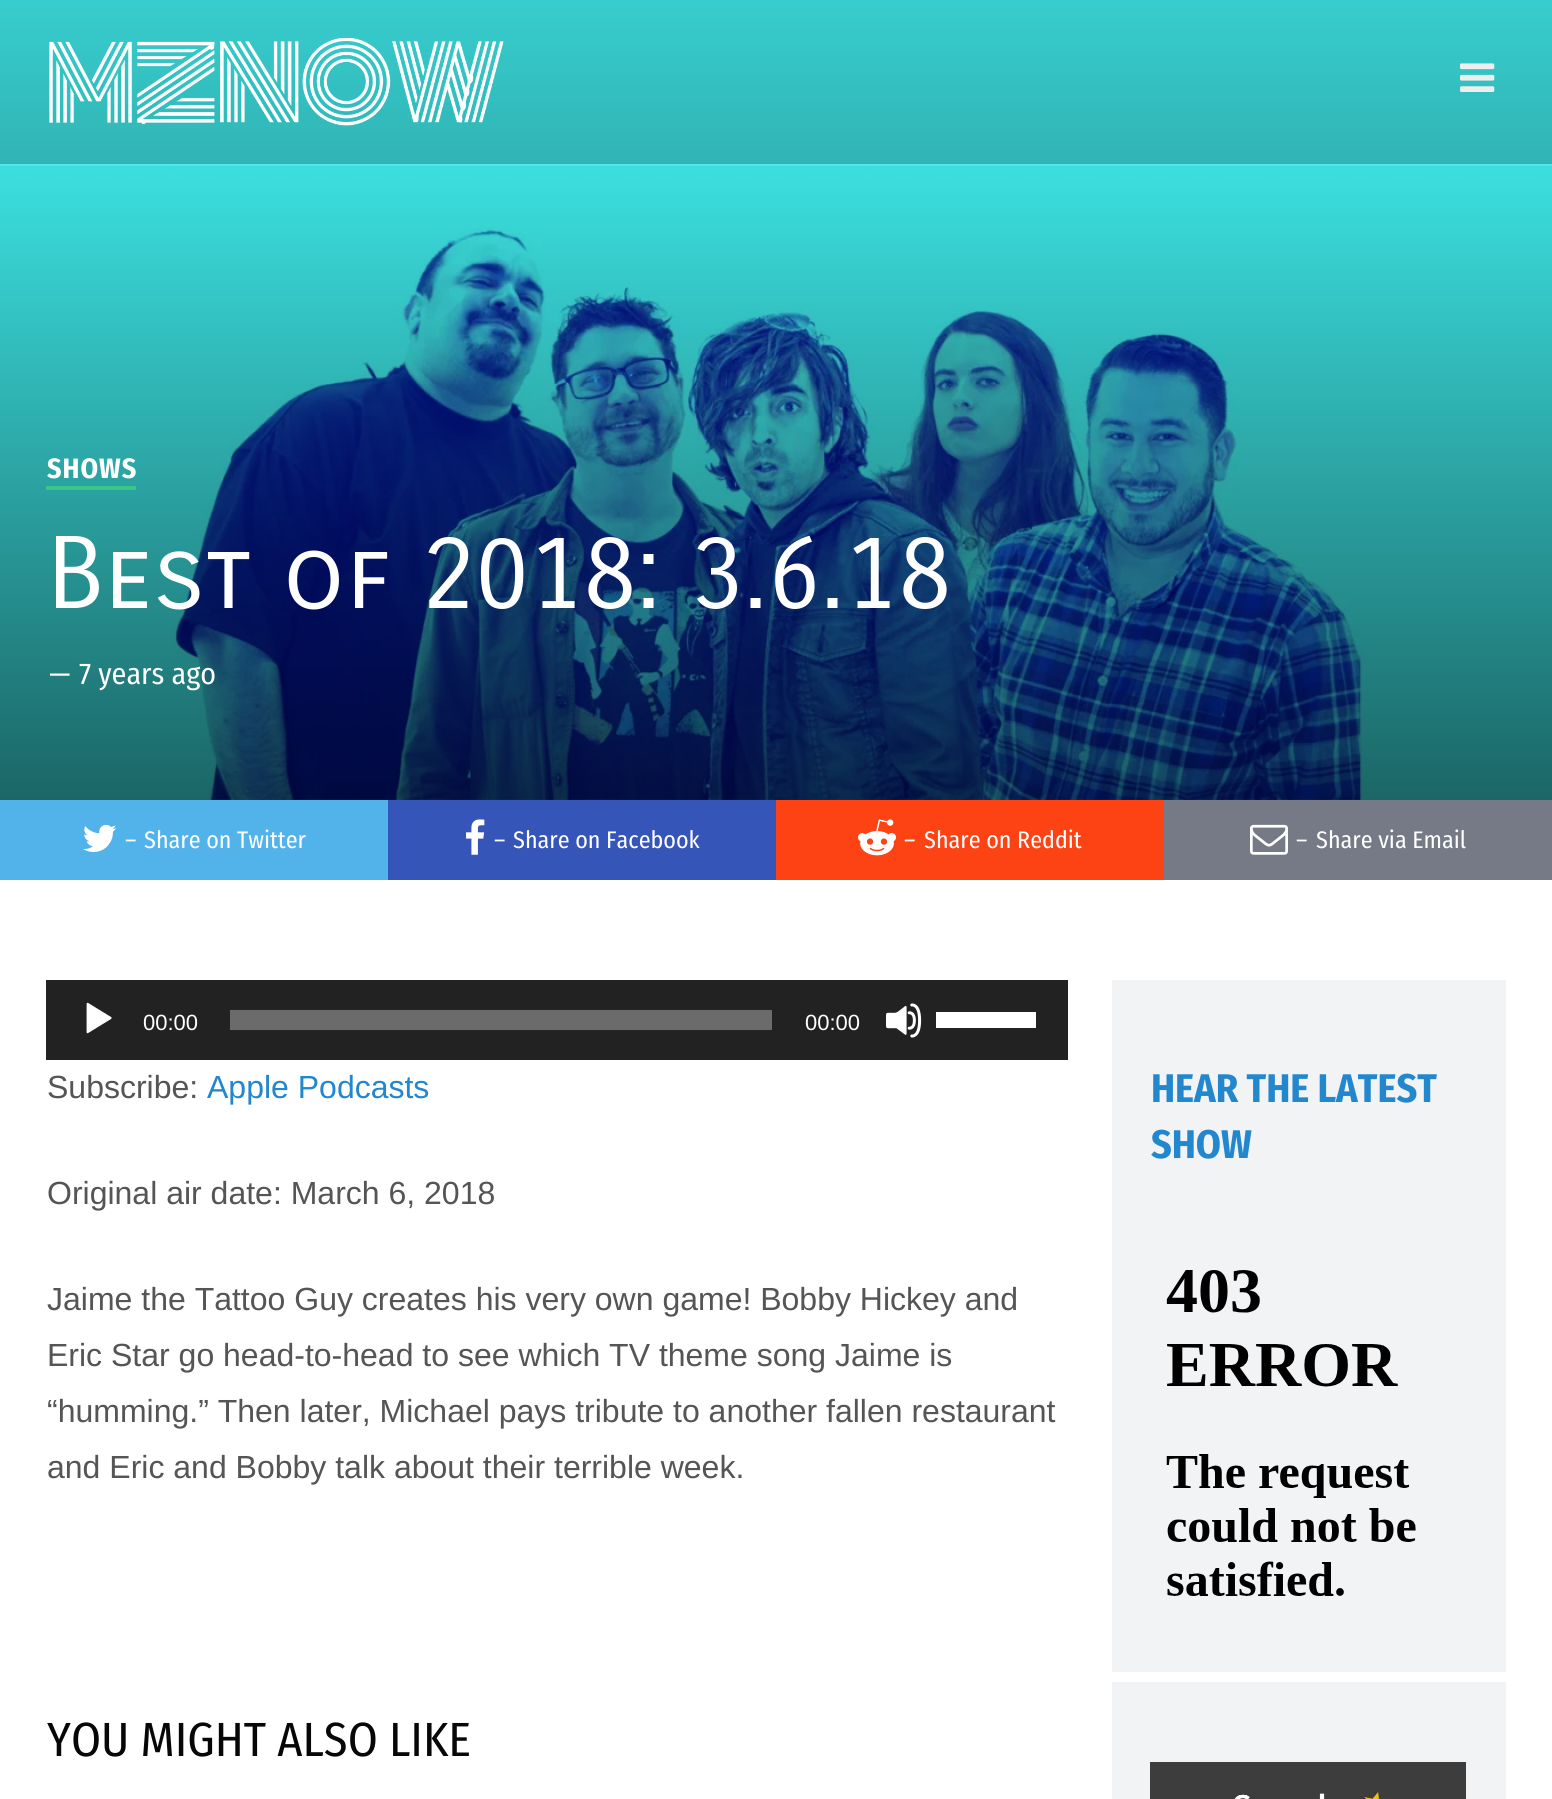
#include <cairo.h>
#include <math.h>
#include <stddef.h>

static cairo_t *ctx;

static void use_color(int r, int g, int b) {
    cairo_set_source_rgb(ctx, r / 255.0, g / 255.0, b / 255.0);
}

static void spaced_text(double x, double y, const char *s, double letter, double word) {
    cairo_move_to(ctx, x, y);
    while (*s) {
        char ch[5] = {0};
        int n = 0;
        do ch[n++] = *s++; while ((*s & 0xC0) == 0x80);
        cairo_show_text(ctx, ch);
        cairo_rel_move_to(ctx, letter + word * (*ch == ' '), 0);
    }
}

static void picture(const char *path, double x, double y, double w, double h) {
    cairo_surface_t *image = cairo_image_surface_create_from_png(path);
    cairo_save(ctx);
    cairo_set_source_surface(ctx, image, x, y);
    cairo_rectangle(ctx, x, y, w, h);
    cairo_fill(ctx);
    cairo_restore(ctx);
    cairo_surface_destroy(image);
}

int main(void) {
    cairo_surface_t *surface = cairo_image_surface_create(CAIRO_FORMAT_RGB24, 1552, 1799);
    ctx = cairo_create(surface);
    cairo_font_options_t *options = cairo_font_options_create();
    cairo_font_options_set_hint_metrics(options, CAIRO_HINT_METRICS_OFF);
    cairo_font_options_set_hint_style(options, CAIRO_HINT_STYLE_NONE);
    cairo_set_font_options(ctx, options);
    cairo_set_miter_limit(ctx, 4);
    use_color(255, 255, 255);
    cairo_paint(ctx);
    picture("img3.png", 0, 0, 1552, 800);
    cairo_set_source_rgba(ctx, 0.035, 0.035, 0.047, 0.2);
    cairo_rectangle(ctx, 0, 0, 1552, 164);
    cairo_fill(ctx);
    picture("img1.png", 49, 38, 455, 88);
    picture("img2.png", 1460, 63, 35, 29);
    use_color(89, 228, 228);
    cairo_rectangle(ctx, 0, 164, 1552, 2);
    cairo_fill(ctx);
    cairo_select_font_face(ctx, "Fira Sans Condensed", CAIRO_FONT_SLANT_NORMAL, CAIRO_FONT_WEIGHT_BOLD);
    cairo_set_font_size(ctx, 28);
    use_color(255, 255, 255);
    spaced_text(47, 478, "SHOWS", 1, 0);
    use_color(57, 198, 134);
    cairo_rectangle(ctx, 46, 486, 90, 4);
    cairo_fill(ctx);
    cairo_select_font_face(ctx, "Carrois Gothic SC", CAIRO_FONT_SLANT_NORMAL, CAIRO_FONT_WEIGHT_NORMAL);
    cairo_set_font_size(ctx, 100);
    use_color(255, 255, 255);
    cairo_move_to(ctx, 47, 608);
    cairo_show_text(ctx, "Best of 2018: 3.6.18");
    cairo_select_font_face(ctx, "Fira Sans Condensed", CAIRO_FONT_SLANT_NORMAL, CAIRO_FONT_WEIGHT_NORMAL);
    cairo_set_font_size(ctx, 30);
    cairo_move_to(ctx, 49, 684);
    cairo_show_text(ctx, "—");
    cairo_move_to(ctx, 79, 684);
    cairo_show_text(ctx, "7 years ago");
    use_color(82, 179, 235);
    cairo_rectangle(ctx, 0, 800, 388, 80);
    cairo_fill(ctx);
    picture("img4.png", 83, 824, 34, 28);
    cairo_set_font_size(ctx, 24);
    use_color(255, 255, 255);
    cairo_move_to(ctx, 125, 848);
    cairo_show_text(ctx, "–");
    cairo_move_to(ctx, 144, 848);
    cairo_show_text(ctx, "Share on Twitter");
    use_color(54, 85, 185);
    cairo_rectangle(ctx, 388, 800, 388, 80);
    cairo_fill(ctx);
    picture("img5.png", 466, 819, 19, 36);
    use_color(255, 255, 255);
    cairo_move_to(ctx, 494, 848);
    cairo_show_text(ctx, "–");
    cairo_move_to(ctx, 513, 848);
    cairo_show_text(ctx, "Share on Facebook");
    use_color(253, 67, 20);
    cairo_rectangle(ctx, 776, 800, 388, 80);
    cairo_fill(ctx);
    picture("img6.png", 858, 819, 38, 37);
    use_color(255, 255, 255);
    cairo_move_to(ctx, 904, 848);
    cairo_show_text(ctx, "–");
    cairo_move_to(ctx, 924, 848);
    cairo_show_text(ctx, "Share on Reddit");
    use_color(118, 122, 134);
    cairo_rectangle(ctx, 1164, 800, 388, 80);
    cairo_fill(ctx);
    picture("img7.png", 1250, 824, 38, 31);
    use_color(255, 255, 255);
    cairo_move_to(ctx, 1296, 848);
    cairo_show_text(ctx, "–");
    cairo_move_to(ctx, 1316, 848);
    cairo_show_text(ctx, "Share via Email");
    use_color(34, 34, 34);
    cairo_rectangle(ctx, 46, 980, 1022, 80);
    cairo_fill(ctx);
    picture("img8.png", 86, 1002, 26, 32);
    cairo_select_font_face(ctx, "Liberation Sans", CAIRO_FONT_SLANT_NORMAL, CAIRO_FONT_WEIGHT_NORMAL);
    cairo_set_font_size(ctx, 22);
    use_color(255, 255, 255);
    cairo_move_to(ctx, 143, 1030);
    cairo_show_text(ctx, "00:00");
    use_color(107, 107, 107);
    cairo_rectangle(ctx, 230, 1010, 542, 20);
    cairo_fill(ctx);
    use_color(255, 255, 255);
    cairo_move_to(ctx, 805, 1030);
    cairo_show_text(ctx, "00:00");
    picture("img9.png", 886, 1003, 36, 35);
    cairo_rectangle(ctx, 936, 1012, 100, 16);
    cairo_fill(ctx);
    cairo_select_font_face(ctx, "Arimo", CAIRO_FONT_SLANT_NORMAL, CAIRO_FONT_WEIGHT_NORMAL);
    cairo_set_font_size(ctx, 32);
    use_color(85, 85, 85);
    cairo_move_to(ctx, 47, 1098);
    cairo_show_text(ctx, "Subscribe:");
    use_color(34, 135, 205);
    cairo_move_to(ctx, 207, 1098);
    cairo_show_text(ctx, "Apple Podcasts");
    use_color(85, 85, 85);
    cairo_move_to(ctx, 47, 1204);
    cairo_show_text(ctx, "Original air date: March 6, 2018");
    cairo_move_to(ctx, 47, 1310);
    cairo_show_text(ctx, "Jaime the Tattoo Guy creates his very own game! Bobby Hickey and");
    cairo_move_to(ctx, 47, 1366);
    cairo_show_text(ctx, "Eric Star go head-to-head to see which TV theme song Jaime is");
    cairo_move_to(ctx, 47, 1422);
    cairo_show_text(ctx, "“humming.” Then later, Michael pays tribute to another fallen restaurant");
    cairo_move_to(ctx, 47, 1478);
    cairo_show_text(ctx, "and Eric and Bobby talk about their terrible week.");
    cairo_select_font_face(ctx, "Fira Sans Condensed", CAIRO_FONT_SLANT_NORMAL, CAIRO_FONT_WEIGHT_NORMAL);
    cairo_set_font_size(ctx, 48);
    use_color(7, 7, 7);
    cairo_move_to(ctx, 47, 1756);
    cairo_show_text(ctx, "YOU MIGHT ALSO LIKE");
    use_color(242, 243, 245);
    cairo_rectangle(ctx, 1112, 980, 394, 692);
    cairo_fill(ctx);
    cairo_select_font_face(ctx, "Fira Sans Condensed", CAIRO_FONT_SLANT_NORMAL, CAIRO_FONT_WEIGHT_BOLD);
    cairo_set_font_size(ctx, 40);
    use_color(34, 135, 205);
    cairo_move_to(ctx, 1151, 1102);
    cairo_show_text(ctx, "HEAR THE LATEST");
    cairo_move_to(ctx, 1151, 1158);
    cairo_show_text(ctx, "SHOW");
    picture("img10.png", 1166, 1270, 250, 326);
    use_color(242, 243, 245);
    cairo_rectangle(ctx, 1112, 1682, 394, 117);
    cairo_fill(ctx);
    picture("img11.png", 1150, 1762, 316, 37);
    cairo_surface_write_to_png(surface, "result.png");
    cairo_font_options_destroy(options);
    cairo_destroy(ctx);
    cairo_surface_destroy(surface);
    return 0;
}
